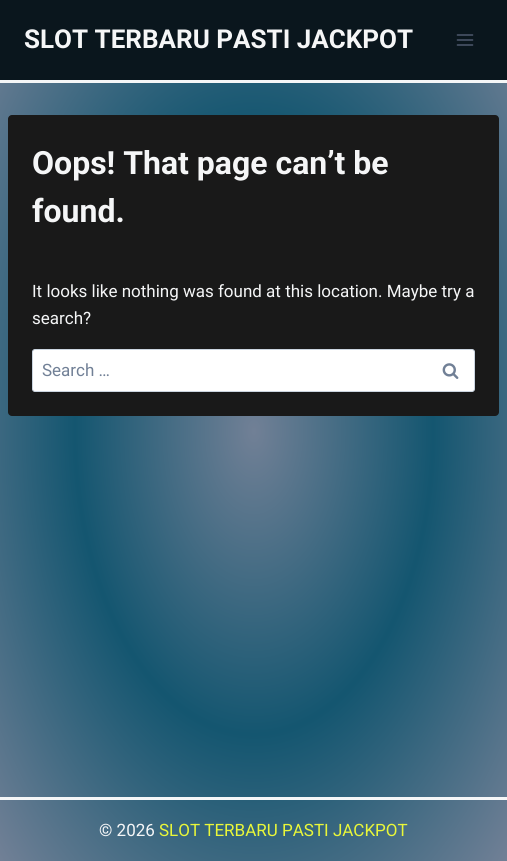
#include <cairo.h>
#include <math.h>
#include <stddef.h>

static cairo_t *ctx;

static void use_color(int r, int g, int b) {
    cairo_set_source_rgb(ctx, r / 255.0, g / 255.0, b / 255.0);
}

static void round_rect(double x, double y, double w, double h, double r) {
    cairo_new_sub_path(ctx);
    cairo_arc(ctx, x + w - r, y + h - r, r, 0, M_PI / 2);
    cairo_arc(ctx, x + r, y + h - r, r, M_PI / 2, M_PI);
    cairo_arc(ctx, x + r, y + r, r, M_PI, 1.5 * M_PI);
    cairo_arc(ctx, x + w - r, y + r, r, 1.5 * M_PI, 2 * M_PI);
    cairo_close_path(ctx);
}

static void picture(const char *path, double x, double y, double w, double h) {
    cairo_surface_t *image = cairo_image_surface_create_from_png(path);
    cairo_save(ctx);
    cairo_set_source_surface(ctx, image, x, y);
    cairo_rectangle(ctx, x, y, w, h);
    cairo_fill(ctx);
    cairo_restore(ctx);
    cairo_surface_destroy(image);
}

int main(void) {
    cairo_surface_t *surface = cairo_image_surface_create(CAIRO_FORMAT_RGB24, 507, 861);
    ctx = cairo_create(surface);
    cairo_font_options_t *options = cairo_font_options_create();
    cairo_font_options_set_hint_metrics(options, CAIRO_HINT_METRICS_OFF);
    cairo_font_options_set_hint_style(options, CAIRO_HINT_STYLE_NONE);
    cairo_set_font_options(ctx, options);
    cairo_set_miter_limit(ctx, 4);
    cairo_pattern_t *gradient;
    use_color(255, 255, 255);
    cairo_paint(ctx);
    gradient = cairo_pattern_create_radial(0, 0, 0, 0, 0, 1);
    cairo_pattern_set_matrix(gradient, &(cairo_matrix_t){1.0 / 359, 0, 0, 1.0 / 609, -1.0 * 254 / 359, -1.0 * 431 / 609});
    cairo_pattern_add_color_stop_rgba(gradient, 0, 0.443, 0.502, 0.588, 1);
    cairo_pattern_add_color_stop_rgba(gradient, 0.5, 0.078, 0.337, 0.439, 1);
    cairo_pattern_add_color_stop_rgba(gradient, 1, 0.443, 0.502, 0.588, 1);
    cairo_set_source(ctx, gradient);
    cairo_pattern_destroy(gradient);
    cairo_rectangle(ctx, 0, 83, 507, 778);
    cairo_fill(ctx);
    use_color(10, 22, 29);
    cairo_rectangle(ctx, 0, 0, 507, 80);
    cairo_fill(ctx);
    use_color(245, 246, 247);
    cairo_rectangle(ctx, 0, 80, 507, 3);
    cairo_fill(ctx);
    cairo_select_font_face(ctx, "Roboto", CAIRO_FONT_SLANT_NORMAL, CAIRO_FONT_WEIGHT_BOLD);
    cairo_set_font_size(ctx, 26);
    cairo_move_to(ctx, 24, 48);
    cairo_show_text(ctx, "SLOT TERBARU PASTI JACKPOT");
    picture("img1.png", 456, 34, 18, 12);
    use_color(25, 25, 25);
    round_rect(8, 115, 491, 301, 4);
    cairo_fill(ctx);
    cairo_set_font_size(ctx, 32);
    use_color(245, 246, 247);
    cairo_move_to(ctx, 32, 174);
    cairo_show_text(ctx, "Oops! That page can’t be");
    cairo_move_to(ctx, 32, 222);
    cairo_show_text(ctx, "found.");
    cairo_select_font_face(ctx, "Roboto", CAIRO_FONT_SLANT_NORMAL, CAIRO_FONT_WEIGHT_NORMAL);
    cairo_set_font_size(ctx, 17);
    cairo_move_to(ctx, 32, 297);
    cairo_show_text(ctx, "It looks like nothing was found at this location. Maybe try a");
    cairo_move_to(ctx, 32, 324);
    cairo_show_text(ctx, "search?");
    use_color(255, 255, 255);
    round_rect(32.5, 349.5, 442, 42, 2.5);
    cairo_fill_preserve(ctx);
    use_color(203, 213, 224);
    cairo_set_line_width(ctx, 1);
    cairo_stroke(ctx);
    use_color(113, 128, 150);
    cairo_move_to(ctx, 42, 376);
    cairo_show_text(ctx, "Search …");
    picture("img2.png", 442, 363, 17, 16);
    use_color(245, 246, 247);
    cairo_rectangle(ctx, 0, 797, 507, 3);
    cairo_fill(ctx);
    cairo_move_to(ctx, 99, 836);
    cairo_show_text(ctx, "© 2026");
    use_color(233, 247, 57);
    cairo_move_to(ctx, 159, 836);
    cairo_show_text(ctx, "SLOT TERBARU PASTI JACKPOT");
    cairo_surface_write_to_png(surface, "result.png");
    cairo_font_options_destroy(options);
    cairo_destroy(ctx);
    cairo_surface_destroy(surface);
    return 0;
}
